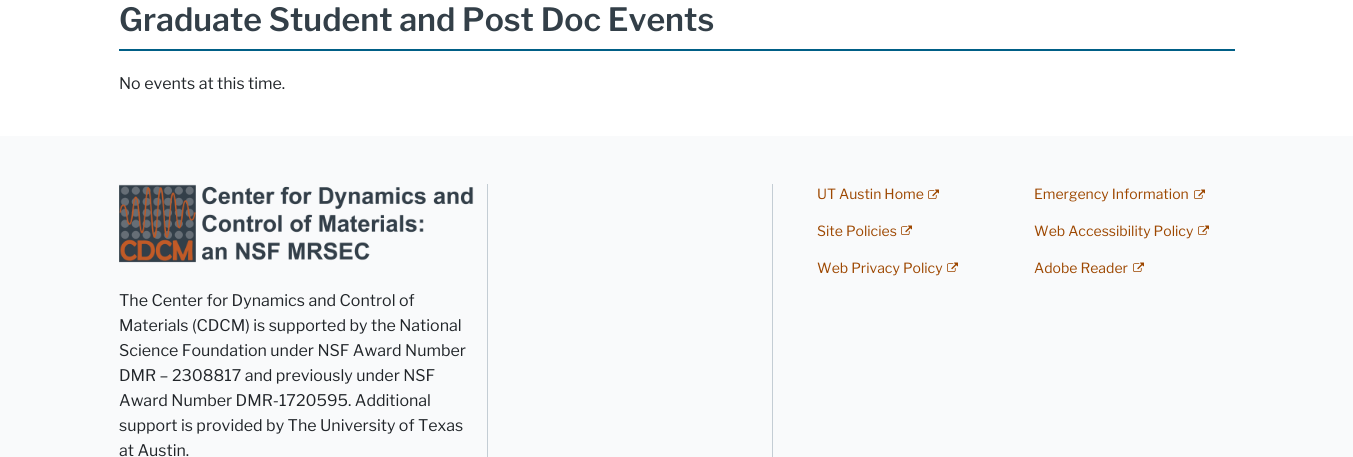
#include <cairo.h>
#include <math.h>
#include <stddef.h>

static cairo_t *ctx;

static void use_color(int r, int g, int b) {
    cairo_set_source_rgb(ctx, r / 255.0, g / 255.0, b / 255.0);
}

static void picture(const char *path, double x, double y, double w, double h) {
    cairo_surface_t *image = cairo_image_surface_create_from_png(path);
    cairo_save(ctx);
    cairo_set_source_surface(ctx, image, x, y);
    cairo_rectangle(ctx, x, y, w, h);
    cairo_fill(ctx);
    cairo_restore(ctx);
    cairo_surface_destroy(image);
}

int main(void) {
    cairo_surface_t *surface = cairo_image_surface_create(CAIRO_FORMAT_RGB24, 1353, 457);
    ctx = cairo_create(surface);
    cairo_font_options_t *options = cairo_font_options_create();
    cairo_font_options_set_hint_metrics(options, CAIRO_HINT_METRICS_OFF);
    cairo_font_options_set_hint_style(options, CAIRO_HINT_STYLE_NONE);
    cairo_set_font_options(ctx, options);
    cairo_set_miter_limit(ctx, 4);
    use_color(255, 255, 255);
    cairo_paint(ctx);
    use_color(0, 95, 134);
    cairo_rectangle(ctx, 119, 49, 1116, 2);
    cairo_fill(ctx);
    cairo_select_font_face(ctx, "Libre Franklin SemiBold", CAIRO_FONT_SLANT_NORMAL, CAIRO_FONT_WEIGHT_NORMAL);
    cairo_set_font_size(ctx, 32);
    use_color(51, 63, 72);
    cairo_move_to(ctx, 119, 31);
    cairo_show_text(ctx, "Graduate Student and Post Doc Events");
    cairo_select_font_face(ctx, "Libre Franklin", CAIRO_FONT_SLANT_NORMAL, CAIRO_FONT_WEIGHT_NORMAL);
    cairo_set_font_size(ctx, 16);
    use_color(33, 37, 41);
    cairo_move_to(ctx, 119, 89);
    cairo_show_text(ctx, "No events at this time.");
    use_color(249, 250, 251);
    cairo_rectangle(ctx, 0, 136, 1353, 321);
    cairo_fill(ctx);
    use_color(196, 205, 212);
    cairo_rectangle(ctx, 487, 184, 1, 273);
    cairo_fill(ctx);
    cairo_rectangle(ctx, 772, 184, 1, 273);
    cairo_fill(ctx);
    cairo_set_font_size(ctx, 14);
    use_color(157, 71, 0);
    cairo_move_to(ctx, 817, 199);
    cairo_show_text(ctx, "UT Austin Home");
    picture("img1.png", 928, 189, 11, 10);
    cairo_move_to(ctx, 1034, 199);
    cairo_show_text(ctx, "Emergency Information");
    picture("img1.png", 1194, 189, 11, 10);
    cairo_move_to(ctx, 817, 236);
    cairo_show_text(ctx, "Site Policies");
    picture("img1.png", 901, 225, 11, 10);
    cairo_move_to(ctx, 1034, 236);
    cairo_show_text(ctx, "Web Accessibility Policy");
    picture("img1.png", 1198, 225, 11, 10);
    cairo_move_to(ctx, 817, 273);
    cairo_show_text(ctx, "Web Privacy Policy");
    picture("img1.png", 947, 262, 11, 10);
    cairo_move_to(ctx, 1034, 273);
    cairo_show_text(ctx, "Adobe Reader");
    picture("img1.png", 1133, 262, 11, 10);
    picture("img2.png", 119, 184, 355, 79);
    cairo_set_font_size(ctx, 16);
    use_color(33, 37, 41);
    cairo_move_to(ctx, 119, 306);
    cairo_show_text(ctx, "The Center for Dynamics and Control of");
    cairo_move_to(ctx, 119, 331);
    cairo_show_text(ctx, "Materials (CDCM) is supported by the National");
    cairo_move_to(ctx, 119, 356);
    cairo_show_text(ctx, "Science Foundation under NSF Award Number");
    cairo_move_to(ctx, 119, 381);
    cairo_show_text(ctx, "DMR – 2308817 and previously under NSF");
    cairo_move_to(ctx, 119, 406);
    cairo_show_text(ctx, "Award Number DMR-1720595. Additional");
    cairo_move_to(ctx, 119, 431);
    cairo_show_text(ctx, "support is provided by The University of Texas");
    cairo_move_to(ctx, 119, 456);
    cairo_show_text(ctx, "at Austin.");
    cairo_surface_write_to_png(surface, "result.png");
    cairo_font_options_destroy(options);
    cairo_destroy(ctx);
    cairo_surface_destroy(surface);
    return 0;
}
